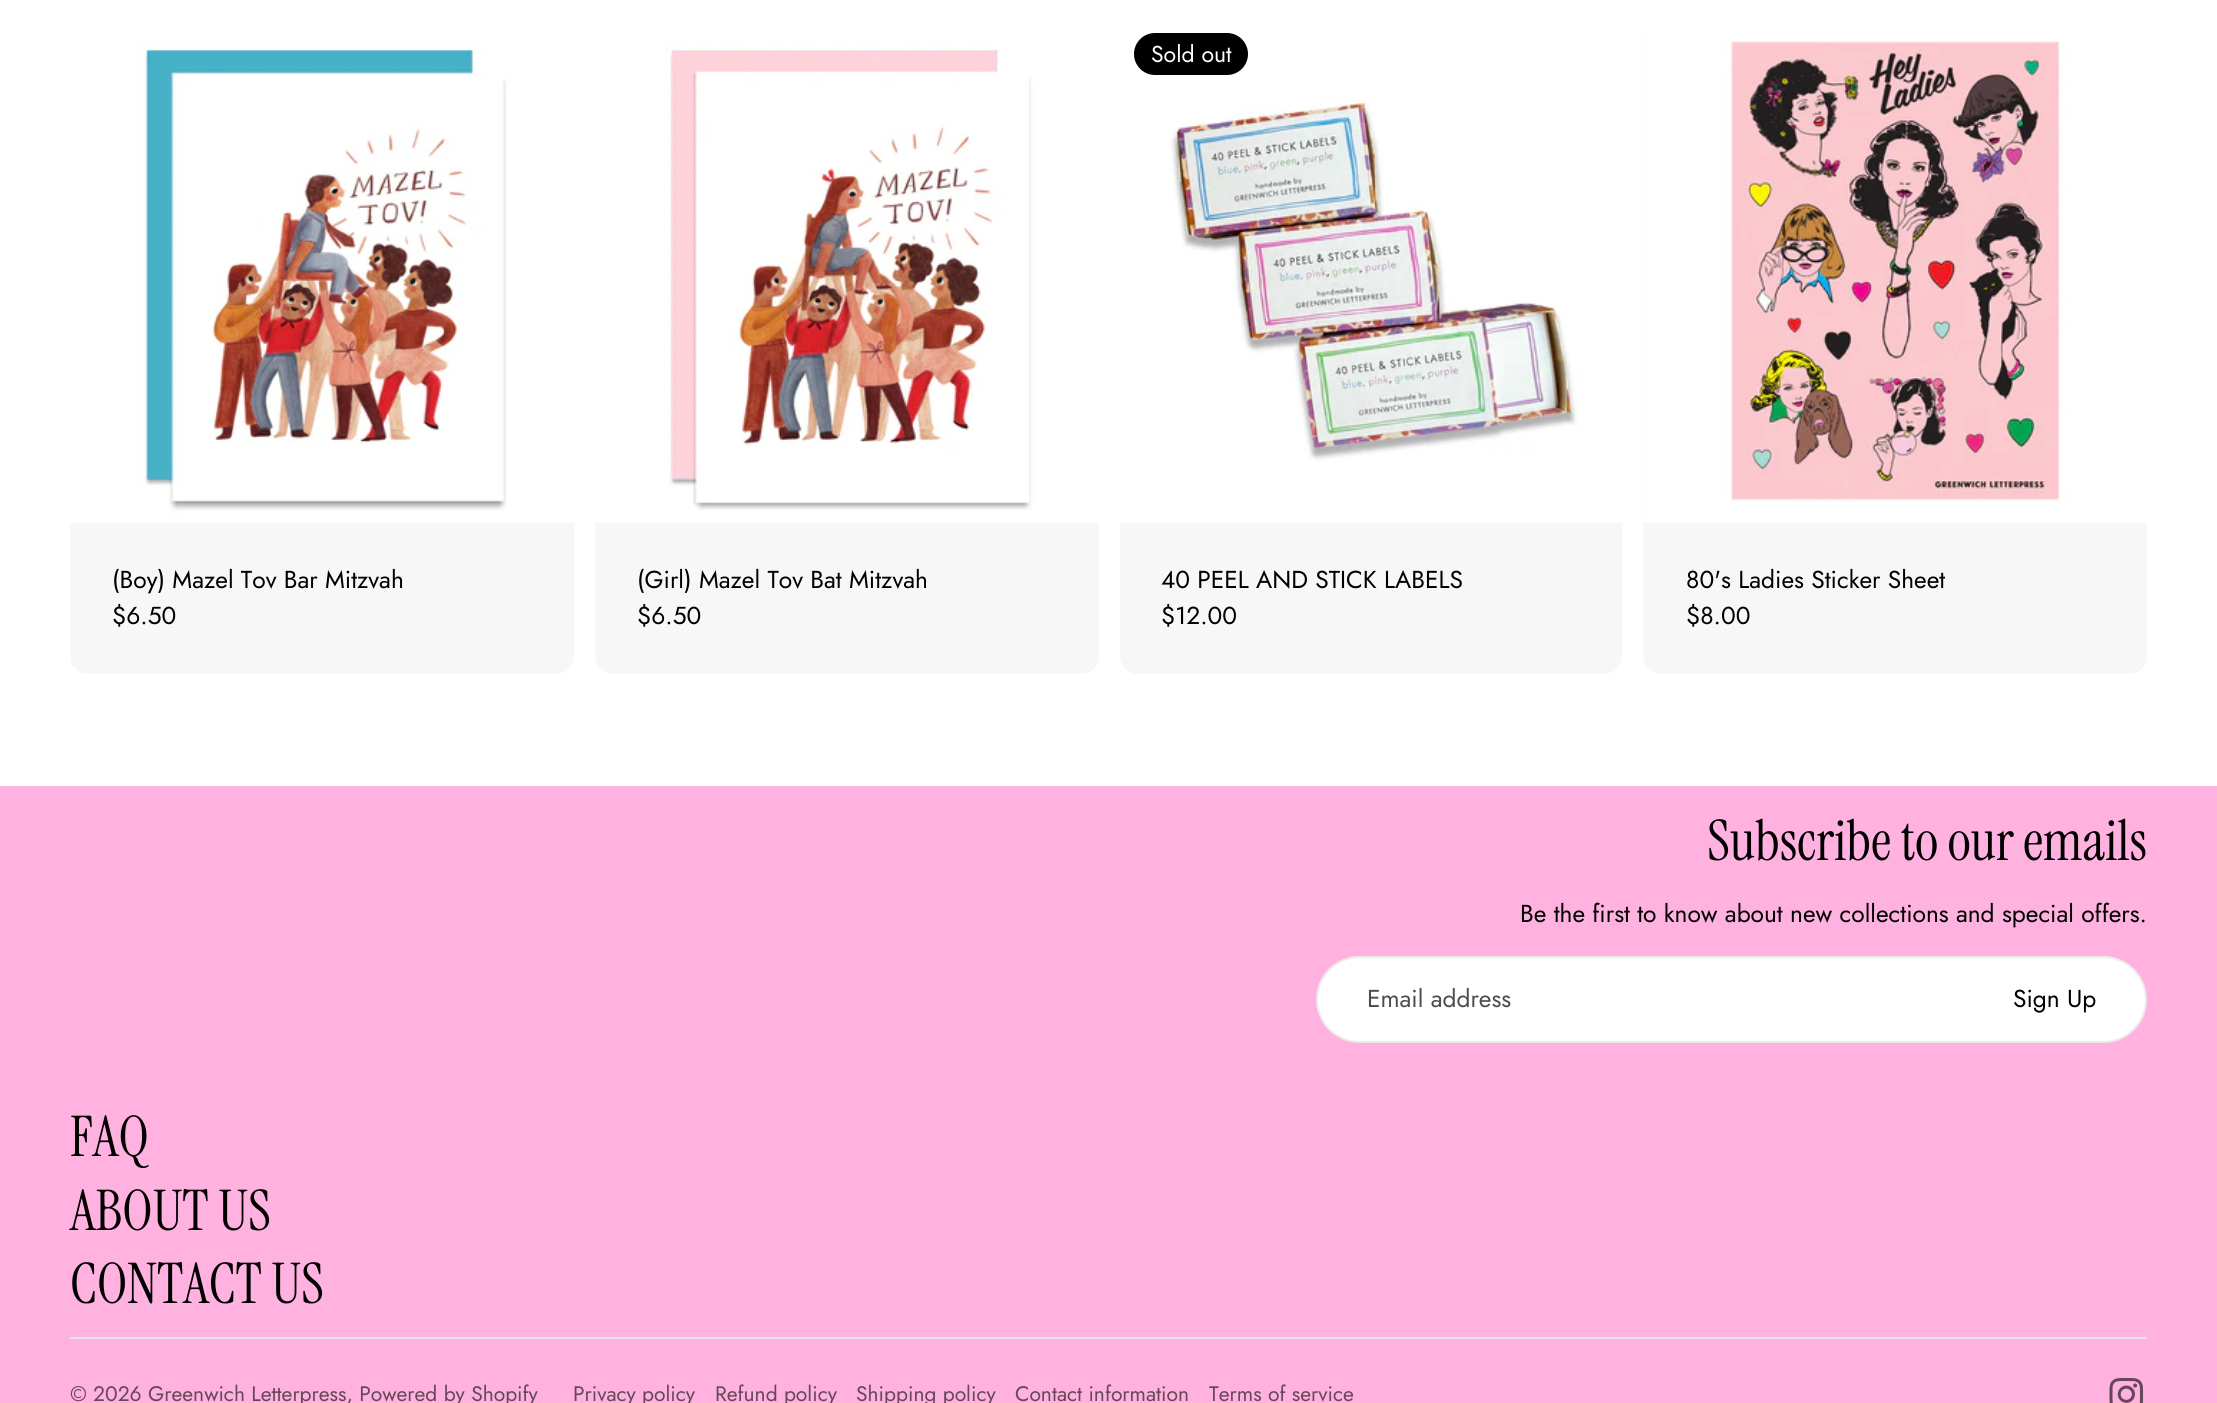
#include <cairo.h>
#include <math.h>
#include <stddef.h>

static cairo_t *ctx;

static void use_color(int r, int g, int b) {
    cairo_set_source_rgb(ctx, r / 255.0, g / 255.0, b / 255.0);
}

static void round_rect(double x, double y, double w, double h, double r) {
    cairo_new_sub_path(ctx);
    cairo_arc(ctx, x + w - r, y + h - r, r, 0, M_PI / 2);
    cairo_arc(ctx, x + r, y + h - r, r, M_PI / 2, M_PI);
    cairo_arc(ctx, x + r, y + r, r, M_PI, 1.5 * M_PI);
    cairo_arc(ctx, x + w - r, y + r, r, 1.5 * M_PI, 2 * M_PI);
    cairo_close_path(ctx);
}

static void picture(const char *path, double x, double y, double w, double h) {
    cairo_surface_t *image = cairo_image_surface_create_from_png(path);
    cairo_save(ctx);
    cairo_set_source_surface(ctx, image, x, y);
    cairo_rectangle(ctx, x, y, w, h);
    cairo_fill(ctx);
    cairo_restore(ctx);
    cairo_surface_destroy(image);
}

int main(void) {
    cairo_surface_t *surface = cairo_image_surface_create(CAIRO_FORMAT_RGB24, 2217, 1403);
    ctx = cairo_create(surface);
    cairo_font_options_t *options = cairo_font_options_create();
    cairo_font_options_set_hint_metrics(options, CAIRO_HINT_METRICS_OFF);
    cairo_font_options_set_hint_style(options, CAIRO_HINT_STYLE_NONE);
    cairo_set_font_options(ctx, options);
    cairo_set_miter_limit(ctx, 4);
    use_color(255, 255, 255);
    cairo_paint(ctx);
    use_color(247, 247, 247);
    round_rect(70, 19, 504, 655, 18);
    cairo_fill(ctx);
    picture("img1.png", 70, 19, 504, 504);
    cairo_select_font_face(ctx, "Jost", CAIRO_FONT_SLANT_NORMAL, CAIRO_FONT_WEIGHT_NORMAL);
    cairo_set_font_size(ctx, 24.5);
    use_color(0, 0, 0);
    cairo_move_to(ctx, 112, 588);
    cairo_show_text(ctx, "(Boy) Mazel Tov Bar Mitzvah");
    cairo_move_to(ctx, 112, 624);
    cairo_show_text(ctx, "$6.50");
    use_color(247, 247, 247);
    round_rect(595, 19, 504, 655, 18);
    cairo_fill(ctx);
    picture("img2.png", 595, 19, 504, 504);
    use_color(0, 0, 0);
    cairo_move_to(ctx, 637, 588);
    cairo_show_text(ctx, "(Girl) Mazel Tov Bat Mitzvah");
    cairo_move_to(ctx, 637, 624);
    cairo_show_text(ctx, "$6.50");
    use_color(247, 247, 247);
    round_rect(1120, 19, 502, 655, 18);
    cairo_fill(ctx);
    picture("img3.png", 1120, 19, 502, 504);
    use_color(0, 0, 0);
    round_rect(1134, 33, 114, 42, 21);
    cairo_fill(ctx);
    cairo_set_font_size(ctx, 23);
    use_color(255, 255, 255);
    cairo_move_to(ctx, 1151, 62);
    cairo_show_text(ctx, "Sold out");
    cairo_set_font_size(ctx, 24.5);
    use_color(0, 0, 0);
    cairo_move_to(ctx, 1161, 588);
    cairo_show_text(ctx, "40 PEEL AND STICK LABELS");
    cairo_move_to(ctx, 1161, 624);
    cairo_show_text(ctx, "$12.00");
    use_color(247, 247, 247);
    round_rect(1643, 19, 504, 655, 18);
    cairo_fill(ctx);
    picture("img4.png", 1643, 19, 504, 504);
    use_color(0, 0, 0);
    cairo_move_to(ctx, 1686, 588);
    cairo_show_text(ctx, "80's Ladies Sticker Sheet");
    cairo_move_to(ctx, 1686, 624);
    cairo_show_text(ctx, "$8.00");
    use_color(255, 178, 223);
    cairo_rectangle(ctx, 0, 786, 2217, 617);
    cairo_fill(ctx);
    cairo_select_font_face(ctx, "Instrument Serif", CAIRO_FONT_SLANT_NORMAL, CAIRO_FONT_WEIGHT_NORMAL);
    cairo_set_font_size(ctx, 56);
    use_color(0, 0, 0);
    cairo_move_to(ctx, 1707, 860);
    cairo_show_text(ctx, "Subscribe to our emails");
    cairo_select_font_face(ctx, "Jost", CAIRO_FONT_SLANT_NORMAL, CAIRO_FONT_WEIGHT_NORMAL);
    cairo_set_font_size(ctx, 24.5);
    cairo_move_to(ctx, 1520, 922);
    cairo_show_text(ctx, "Be the first to know about new collections and special offers.");
    use_color(255, 255, 255);
    round_rect(1316, 956, 831, 87, 43.5);
    cairo_fill(ctx);
    round_rect(1317, 957, 829, 85, 42.5);
    cairo_set_source_rgba(ctx, 0, 0, 0, 0.08);
    cairo_stroke(ctx);
    use_color(77, 77, 77);
    cairo_move_to(ctx, 1367, 1007);
    cairo_show_text(ctx, "Email address");
    use_color(0, 0, 0);
    cairo_move_to(ctx, 2013, 1007);
    cairo_show_text(ctx, "Sign Up");
    cairo_select_font_face(ctx, "Instrument Serif", CAIRO_FONT_SLANT_NORMAL, CAIRO_FONT_WEIGHT_NORMAL);
    cairo_set_font_size(ctx, 56);
    cairo_move_to(ctx, 70, 1156);
    cairo_show_text(ctx, "FAQ");
    cairo_move_to(ctx, 70, 1230);
    cairo_show_text(ctx, "ABOUT US");
    cairo_move_to(ctx, 70, 1303);
    cairo_show_text(ctx, "CONTACT US");
    use_color(230, 230, 230);
    cairo_rectangle(ctx, 70, 1337, 2077, 2);
    cairo_fill(ctx);
    cairo_select_font_face(ctx, "Jost", CAIRO_FONT_SLANT_NORMAL, CAIRO_FONT_WEIGHT_NORMAL);
    cairo_set_font_size(ctx, 21);
    use_color(102, 71, 89);
    cairo_move_to(ctx, 70, 1401);
    cairo_show_text(ctx, "© 2026 Greenwich Letterpress, Powered by Shopify");
    cairo_move_to(ctx, 573, 1401);
    cairo_show_text(ctx, "Privacy policy");
    cairo_move_to(ctx, 715, 1401);
    cairo_show_text(ctx, "Refund policy");
    cairo_move_to(ctx, 856, 1401);
    cairo_show_text(ctx, "Shipping policy");
    cairo_move_to(ctx, 1015, 1401);
    cairo_show_text(ctx, "Contact information");
    cairo_move_to(ctx, 1209, 1401);
    cairo_show_text(ctx, "Terms of service");
    picture("img5.png", 2109, 1377, 35, 26);
    cairo_surface_write_to_png(surface, "result.png");
    cairo_font_options_destroy(options);
    cairo_destroy(ctx);
    cairo_surface_destroy(surface);
    return 0;
}
